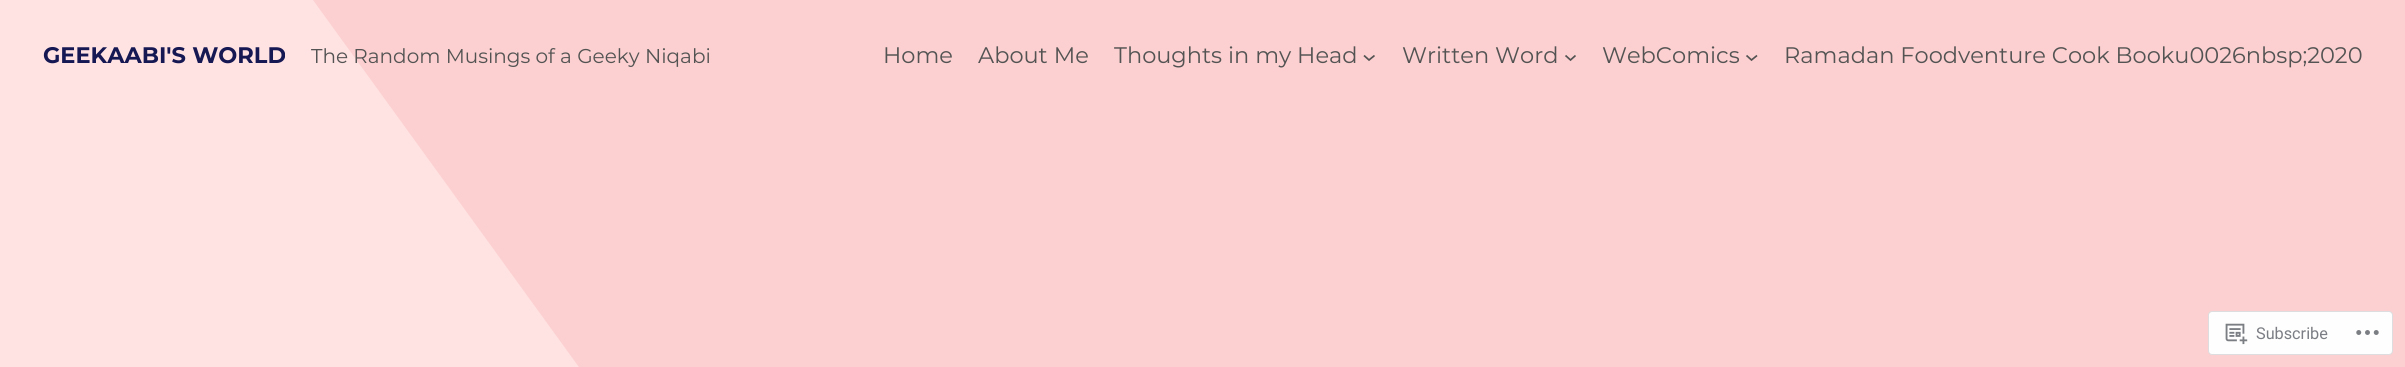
#include <cairo.h>
#include <math.h>
#include <stddef.h>

static cairo_t *ctx;

static void use_color(int r, int g, int b) {
    cairo_set_source_rgb(ctx, r / 255.0, g / 255.0, b / 255.0);
}

static void round_rect(double x, double y, double w, double h, double r) {
    cairo_new_sub_path(ctx);
    cairo_arc(ctx, x + w - r, y + h - r, r, 0, M_PI / 2);
    cairo_arc(ctx, x + r, y + h - r, r, M_PI / 2, M_PI);
    cairo_arc(ctx, x + r, y + r, r, M_PI, 1.5 * M_PI);
    cairo_arc(ctx, x + w - r, y + r, r, 1.5 * M_PI, 2 * M_PI);
    cairo_close_path(ctx);
}

static void picture(const char *path, double x, double y, double w, double h) {
    cairo_surface_t *image = cairo_image_surface_create_from_png(path);
    cairo_save(ctx);
    cairo_set_source_surface(ctx, image, x, y);
    cairo_rectangle(ctx, x, y, w, h);
    cairo_fill(ctx);
    cairo_restore(ctx);
    cairo_surface_destroy(image);
}

int main(void) {
    cairo_surface_t *surface = cairo_image_surface_create(CAIRO_FORMAT_RGB24, 2405, 367);
    ctx = cairo_create(surface);
    cairo_font_options_t *options = cairo_font_options_create();
    cairo_font_options_set_hint_metrics(options, CAIRO_HINT_METRICS_OFF);
    cairo_font_options_set_hint_style(options, CAIRO_HINT_STYLE_NONE);
    cairo_set_font_options(ctx, options);
    cairo_set_miter_limit(ctx, 4);
    use_color(255, 226, 226);
    cairo_paint(ctx);
    use_color(252, 208, 208);
    cairo_new_path(ctx);
    cairo_move_to(ctx, 313, 0);
    cairo_line_to(ctx, 1202, 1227);
    cairo_line_to(ctx, 2405, 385);
    cairo_line_to(ctx, 2405, 0);
    cairo_close_path(ctx);
    cairo_fill(ctx);
    cairo_select_font_face(ctx, "Montserrat", CAIRO_FONT_SLANT_NORMAL, CAIRO_FONT_WEIGHT_BOLD);
    cairo_set_font_size(ctx, 22.5);
    use_color(21, 24, 83);
    cairo_move_to(ctx, 43, 63);
    cairo_show_text(ctx, "GEEKAABI'S WORLD");
    cairo_select_font_face(ctx, "Montserrat", CAIRO_FONT_SLANT_NORMAL, CAIRO_FONT_WEIGHT_NORMAL);
    cairo_set_font_size(ctx, 20);
    use_color(83, 83, 83);
    cairo_move_to(ctx, 311, 63);
    cairo_show_text(ctx, "The Random Musings of a Geeky Niqabi");
    cairo_set_font_size(ctx, 22.5);
    cairo_move_to(ctx, 883, 63);
    cairo_show_text(ctx, "Home");
    cairo_move_to(ctx, 978, 63);
    cairo_show_text(ctx, "About Me");
    cairo_move_to(ctx, 1114, 63);
    cairo_show_text(ctx, "Thoughts in my Head");
    cairo_new_path(ctx);
    cairo_move_to(ctx, 1364, 55.5);
    cairo_line_to(ctx, 1369, 60);
    cairo_line_to(ctx, 1374.5, 55.5);
    cairo_set_line_width(ctx, 1.7);
    cairo_stroke(ctx);
    cairo_move_to(ctx, 1402, 63);
    cairo_show_text(ctx, "Written Word");
    cairo_new_path(ctx);
    cairo_move_to(ctx, 1565.5, 55.5);
    cairo_line_to(ctx, 1570.5, 60);
    cairo_line_to(ctx, 1575.5, 55.5);
    cairo_stroke(ctx);
    cairo_move_to(ctx, 1602, 63);
    cairo_show_text(ctx, "WebComics");
    cairo_new_path(ctx);
    cairo_move_to(ctx, 1746.5, 55.5);
    cairo_line_to(ctx, 1751.5, 60);
    cairo_line_to(ctx, 1757, 55.5);
    cairo_stroke(ctx);
    cairo_move_to(ctx, 1784, 63);
    cairo_show_text(ctx, "Ramadan Foodventure Cook Booku0026nbsp;2020");
    use_color(255, 254, 254);
    round_rect(2208.5, 311.5, 184, 43, 3.5);
    cairo_fill_preserve(ctx);
    use_color(221, 220, 222);
    cairo_set_line_width(ctx, 1);
    cairo_stroke(ctx);
    picture("img1.png", 2225, 323, 23, 22);
    cairo_select_font_face(ctx, "Roboto", CAIRO_FONT_SLANT_NORMAL, CAIRO_FONT_WEIGHT_NORMAL);
    cairo_set_font_size(ctx, 16.25);
    use_color(123, 126, 132);
    cairo_move_to(ctx, 2256, 339);
    cairo_show_text(ctx, "Subscribe");
    picture("img2.png", 2356, 330, 23, 5);
    cairo_surface_write_to_png(surface, "result.png");
    cairo_font_options_destroy(options);
    cairo_destroy(ctx);
    cairo_surface_destroy(surface);
    return 0;
}
